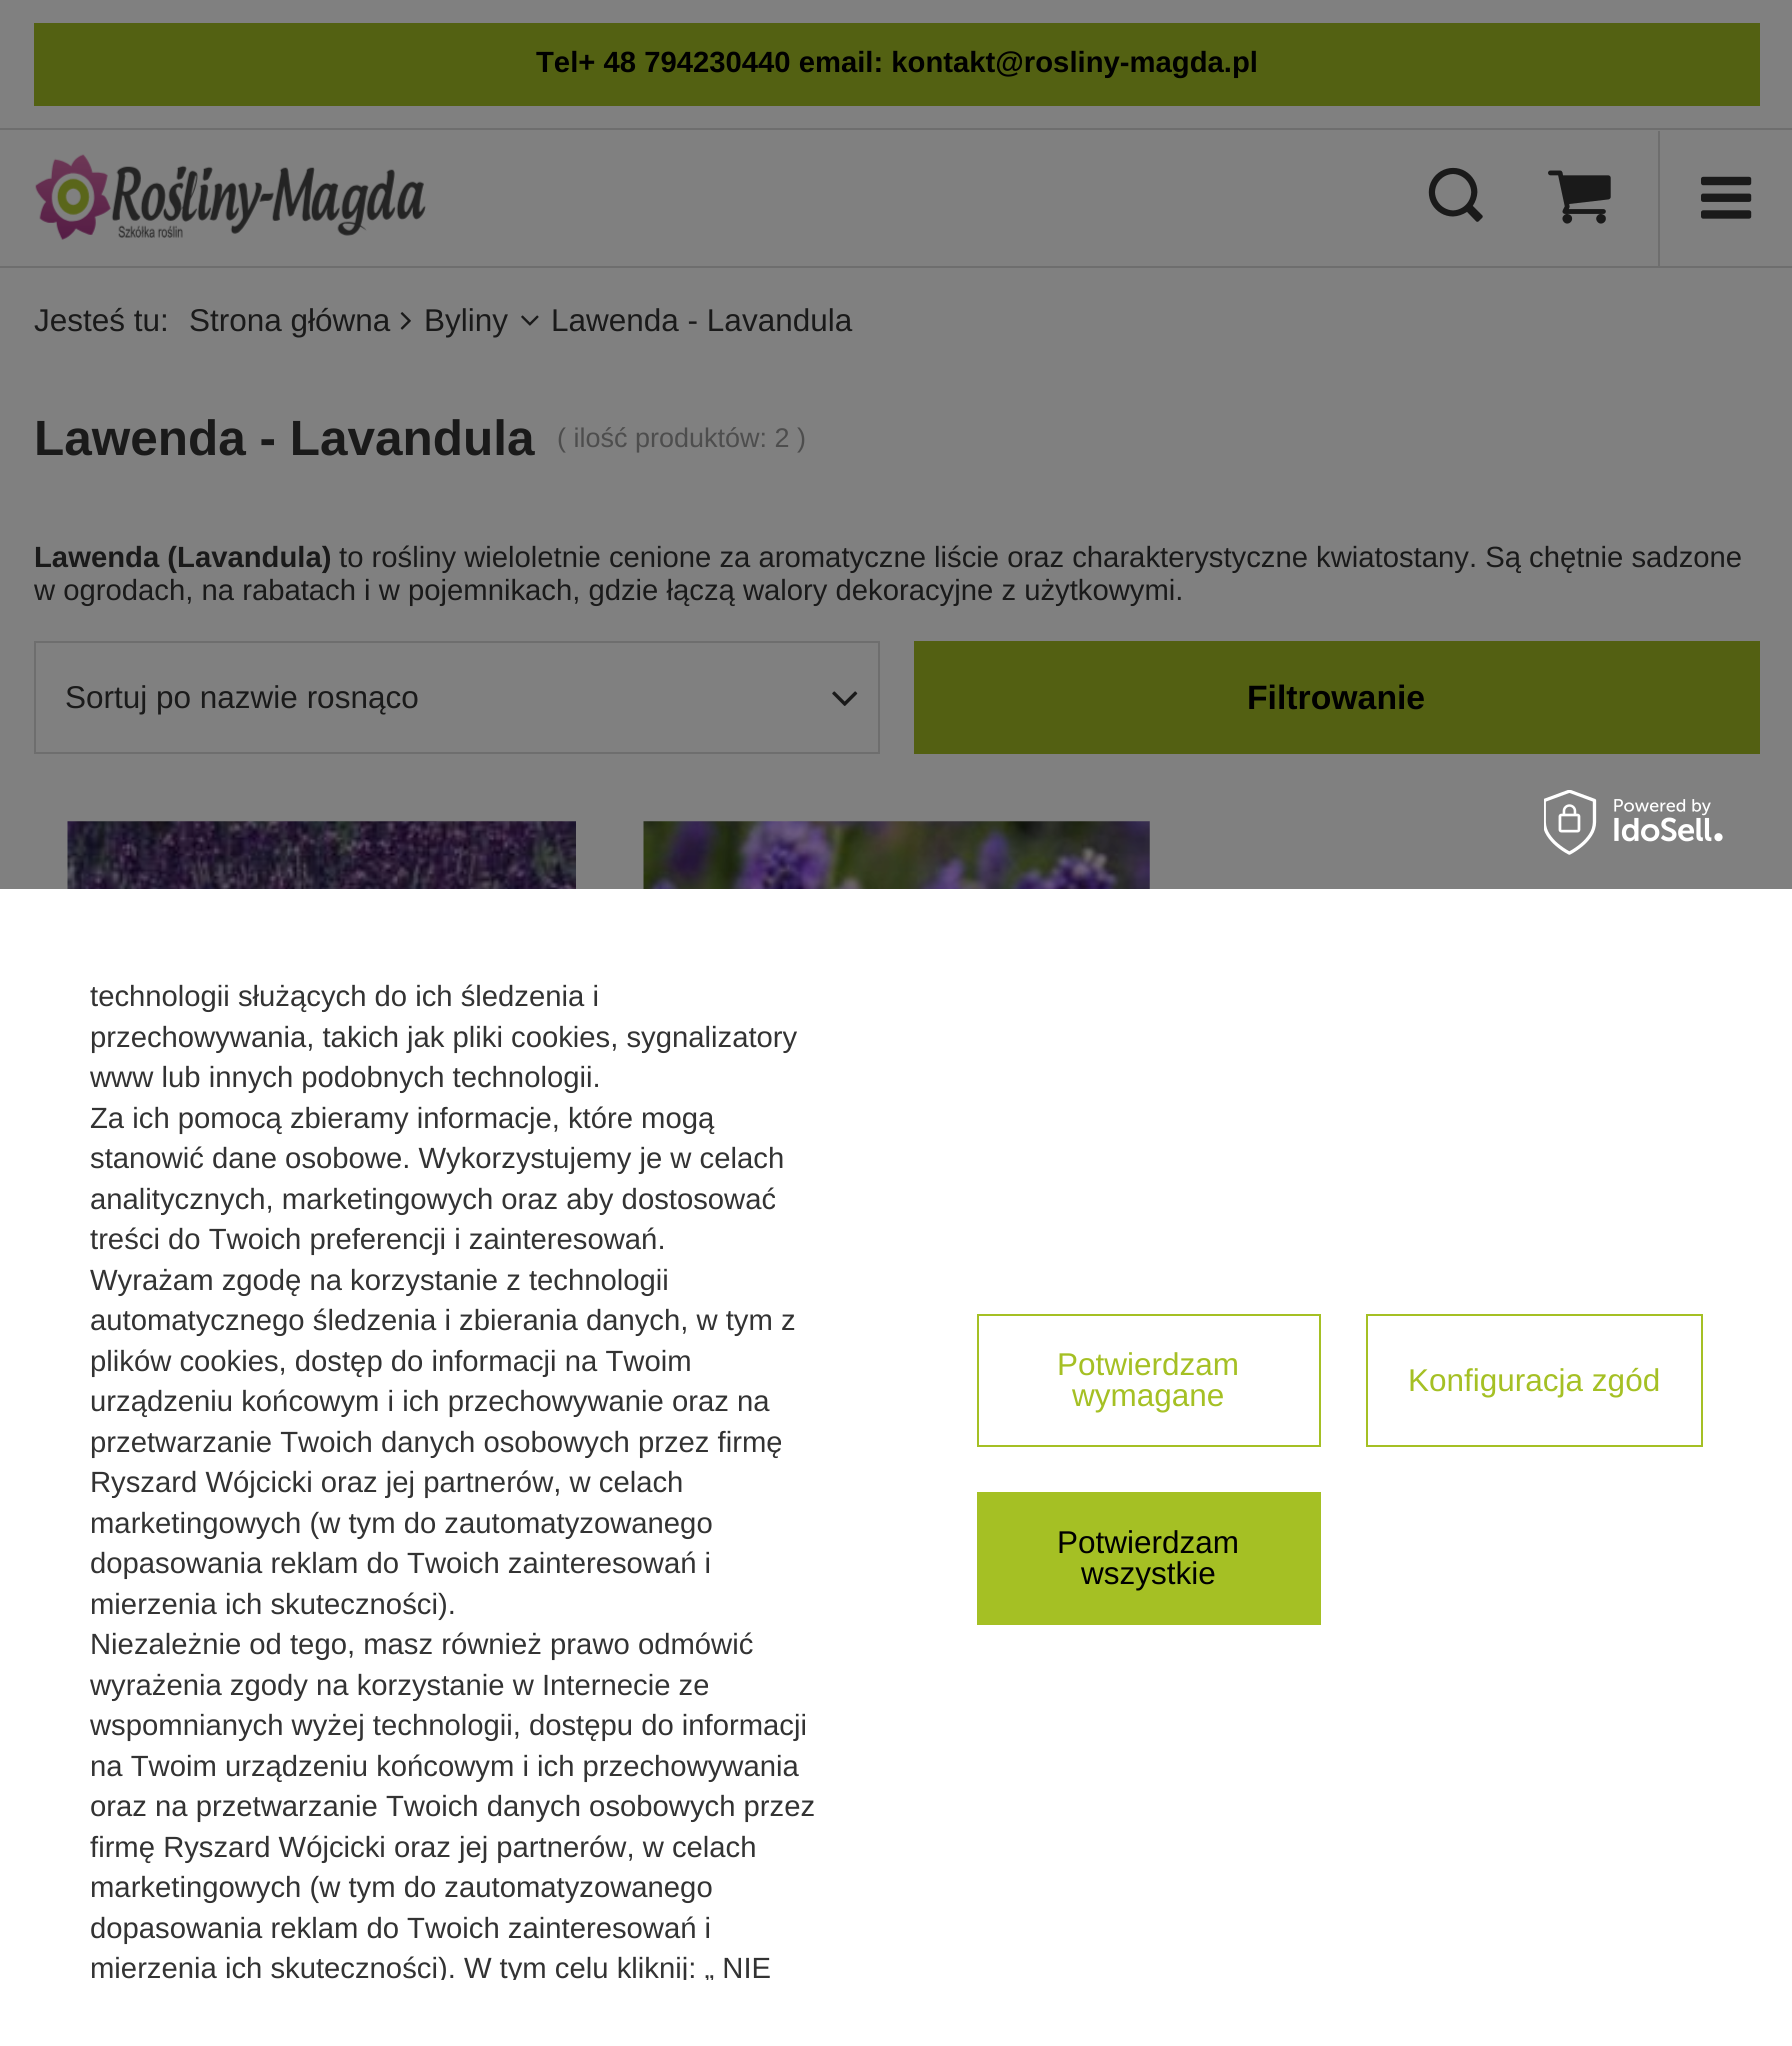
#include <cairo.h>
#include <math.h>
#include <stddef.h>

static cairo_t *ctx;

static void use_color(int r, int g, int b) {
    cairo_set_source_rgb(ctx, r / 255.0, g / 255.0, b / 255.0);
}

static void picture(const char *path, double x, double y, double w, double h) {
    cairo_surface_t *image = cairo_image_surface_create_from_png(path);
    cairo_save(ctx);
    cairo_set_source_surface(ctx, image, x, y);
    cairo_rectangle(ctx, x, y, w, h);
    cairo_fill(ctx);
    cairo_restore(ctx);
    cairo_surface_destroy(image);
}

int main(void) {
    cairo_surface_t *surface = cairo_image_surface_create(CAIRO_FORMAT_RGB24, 1792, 2046);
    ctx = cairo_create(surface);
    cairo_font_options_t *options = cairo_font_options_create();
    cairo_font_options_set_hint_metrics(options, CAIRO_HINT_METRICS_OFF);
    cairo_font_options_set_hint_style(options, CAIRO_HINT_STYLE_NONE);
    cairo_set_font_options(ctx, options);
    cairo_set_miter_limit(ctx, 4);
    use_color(128, 128, 128);
    cairo_paint(ctx);
    use_color(110, 110, 110);
    cairo_rectangle(ctx, 0, 266, 1792, 2);
    cairo_fill(ctx);
    cairo_rectangle(ctx, 0, 128, 1792, 2);
    cairo_fill(ctx);
    use_color(83, 97, 18);
    cairo_rectangle(ctx, 34, 23, 1726, 83);
    cairo_fill(ctx);
    cairo_select_font_face(ctx, "Liberation Sans", CAIRO_FONT_SLANT_NORMAL, CAIRO_FONT_WEIGHT_BOLD);
    cairo_set_font_size(ctx, 29.25);
    use_color(0, 0, 0);
    cairo_move_to(ctx, 536, 72);
    cairo_show_text(ctx, "Tel+ 48 794230440 email: kontakt@rosliny-magda.pl");
    picture("img1.png", 35, 154, 391, 86);
    picture("img2.png", 1428, 167, 55, 55);
    picture("img3.png", 1548, 170, 63, 54);
    use_color(110, 110, 110);
    cairo_rectangle(ctx, 1658, 131, 2, 135);
    cairo_fill(ctx);
    picture("img4.png", 1701, 176, 51, 43);
    cairo_select_font_face(ctx, "Liberation Sans", CAIRO_FONT_SLANT_NORMAL, CAIRO_FONT_WEIGHT_NORMAL);
    cairo_set_font_size(ctx, 31.5);
    use_color(26, 26, 26);
    cairo_move_to(ctx, 34, 331);
    cairo_show_text(ctx, "Jesteś tu:");
    cairo_move_to(ctx, 189, 331);
    cairo_show_text(ctx, "Strona główna");
    picture("img5.png", 400, 312, 11, 18);
    cairo_move_to(ctx, 424, 331);
    cairo_show_text(ctx, "Byliny");
    picture("img6.png", 521, 315, 18, 11);
    cairo_move_to(ctx, 551, 331);
    cairo_show_text(ctx, "Lawenda - Lavandula");
    cairo_select_font_face(ctx, "Liberation Sans", CAIRO_FONT_SLANT_NORMAL, CAIRO_FONT_WEIGHT_BOLD);
    cairo_set_font_size(ctx, 49.5);
    cairo_move_to(ctx, 34, 455);
    cairo_show_text(ctx, "Lawenda - Lavandula");
    cairo_select_font_face(ctx, "Liberation Sans", CAIRO_FONT_SLANT_NORMAL, CAIRO_FONT_WEIGHT_NORMAL);
    cairo_set_font_size(ctx, 27);
    use_color(77, 77, 77);
    cairo_move_to(ctx, 557, 447);
    cairo_show_text(ctx, "( ilość produktów: 2 )");
    cairo_select_font_face(ctx, "Liberation Sans", CAIRO_FONT_SLANT_NORMAL, CAIRO_FONT_WEIGHT_BOLD);
    cairo_set_font_size(ctx, 29.25);
    use_color(26, 26, 26);
    cairo_move_to(ctx, 34, 567);
    cairo_show_text(ctx, "Lawenda (Lavandula)");
    cairo_select_font_face(ctx, "Liberation Sans", CAIRO_FONT_SLANT_NORMAL, CAIRO_FONT_WEIGHT_NORMAL);
    cairo_move_to(ctx, 339, 567);
    cairo_show_text(ctx, "to rośliny wieloletnie cenione za aromatyczne liście oraz charakterystyczne kwiatostany. Są chętnie sadzone");
    cairo_move_to(ctx, 34, 600);
    cairo_show_text(ctx, "w ogrodach, na rabatach i w pojemnikach, gdzie łączą walory dekoracyjne z użytkowymi.");
    cairo_rectangle(ctx, 35, 642, 844, 111);
    use_color(110, 110, 110);
    cairo_stroke(ctx);
    cairo_set_font_size(ctx, 31.5);
    use_color(26, 26, 26);
    cairo_move_to(ctx, 65, 708);
    cairo_show_text(ctx, "Sortuj po nazwie rosnąco");
    picture("img7.png", 832, 691, 26, 15);
    use_color(83, 96, 18);
    cairo_rectangle(ctx, 914, 641, 846, 113);
    cairo_fill(ctx);
    cairo_select_font_face(ctx, "Liberation Sans", CAIRO_FONT_SLANT_NORMAL, CAIRO_FONT_WEIGHT_BOLD);
    cairo_set_font_size(ctx, 33.75);
    use_color(0, 0, 0);
    cairo_move_to(ctx, 1247, 709);
    cairo_show_text(ctx, "Filtrowanie");
    picture("img8.png", 67, 821, 509, 68);
    picture("img9.png", 643, 821, 507, 68);
    use_color(255, 255, 255);
    cairo_rectangle(ctx, 0, 889, 1792, 1157);
    cairo_fill(ctx);
    picture("img10.png", 1544, 790, 179, 65);
    cairo_select_font_face(ctx, "Liberation Sans", CAIRO_FONT_SLANT_NORMAL, CAIRO_FONT_WEIGHT_NORMAL);
    cairo_set_font_size(ctx, 29.25);
    use_color(51, 51, 51);
    cairo_move_to(ctx, 90, 1006);
    cairo_show_text(ctx, "technologii służących do ich śledzenia i");
    cairo_move_to(ctx, 90, 1047);
    cairo_show_text(ctx, "przechowywania, takich jak pliki cookies, sygnalizatory");
    cairo_move_to(ctx, 90, 1087);
    cairo_show_text(ctx, "www lub innych podobnych technologii.");
    cairo_move_to(ctx, 90, 1128);
    cairo_show_text(ctx, "Za ich pomocą zbieramy informacje, które mogą");
    cairo_move_to(ctx, 90, 1168);
    cairo_show_text(ctx, "stanowić dane osobowe. Wykorzystujemy je w celach");
    cairo_move_to(ctx, 90, 1209);
    cairo_show_text(ctx, "analitycznych, marketingowych oraz aby dostosować");
    cairo_move_to(ctx, 90, 1249);
    cairo_show_text(ctx, "treści do Twoich preferencji i zainteresowań.");
    cairo_move_to(ctx, 90, 1290);
    cairo_show_text(ctx, "Wyrażam zgodę na korzystanie z technologii");
    cairo_move_to(ctx, 90, 1330);
    cairo_show_text(ctx, "automatycznego śledzenia i zbierania danych, w tym z");
    cairo_move_to(ctx, 90, 1371);
    cairo_show_text(ctx, "plików cookies, dostęp do informacji na Twoim");
    cairo_move_to(ctx, 90, 1411);
    cairo_show_text(ctx, "urządzeniu końcowym i ich przechowywanie oraz na");
    cairo_move_to(ctx, 90, 1452);
    cairo_show_text(ctx, "przetwarzanie Twoich danych osobowych przez firmę");
    cairo_move_to(ctx, 90, 1492);
    cairo_show_text(ctx, "Ryszard Wójcicki oraz jej partnerów, w celach");
    cairo_move_to(ctx, 90, 1533);
    cairo_show_text(ctx, "marketingowych (w tym do zautomatyzowanego");
    cairo_move_to(ctx, 90, 1573);
    cairo_show_text(ctx, "dopasowania reklam do Twoich zainteresowań i");
    cairo_move_to(ctx, 90, 1614);
    cairo_show_text(ctx, "mierzenia ich skuteczności).");
    cairo_move_to(ctx, 90, 1654);
    cairo_show_text(ctx, "Niezależnie od tego, masz również prawo odmówić");
    cairo_move_to(ctx, 90, 1695);
    cairo_show_text(ctx, "wyrażenia zgody na korzystanie w Internecie ze");
    cairo_move_to(ctx, 90, 1735);
    cairo_show_text(ctx, "wspomnianych wyżej technologii, dostępu do informacji");
    cairo_move_to(ctx, 90, 1776);
    cairo_show_text(ctx, "na Twoim urządzeniu końcowym i ich przechowywania");
    cairo_move_to(ctx, 90, 1816);
    cairo_show_text(ctx, "oraz na przetwarzanie Twoich danych osobowych przez");
    cairo_move_to(ctx, 90, 1857);
    cairo_show_text(ctx, "firmę Ryszard Wójcicki oraz jej partnerów, w celach");
    cairo_move_to(ctx, 90, 1897);
    cairo_show_text(ctx, "marketingowych (w tym do zautomatyzowanego");
    cairo_move_to(ctx, 90, 1938);
    cairo_show_text(ctx, "dopasowania reklam do Twoich zainteresowań i");
    cairo_save(ctx);
    cairo_rectangle(ctx, 68, 956, 774, 1024);
    cairo_clip(ctx);
    cairo_move_to(ctx, 90, 1978);
    cairo_show_text(ctx, "mierzenia ich skuteczności). W tym celu kliknij: „ NIE");
    cairo_restore(ctx);
    cairo_rectangle(ctx, 978, 1315, 342, 131);
    use_color(165, 192, 36);
    cairo_stroke(ctx);
    cairo_set_font_size(ctx, 31.5);
    cairo_move_to(ctx, 1057, 1375);
    cairo_show_text(ctx, "Potwierdzam");
    cairo_move_to(ctx, 1072, 1406);
    cairo_show_text(ctx, "wymagane");
    cairo_rectangle(ctx, 1367, 1315, 335, 131);
    cairo_stroke(ctx);
    cairo_move_to(ctx, 1408, 1391);
    cairo_show_text(ctx, "Konfiguracja zgód");
    cairo_rectangle(ctx, 977, 1492, 344, 133);
    cairo_fill(ctx);
    use_color(0, 0, 0);
    cairo_move_to(ctx, 1057, 1553);
    cairo_show_text(ctx, "Potwierdzam");
    cairo_move_to(ctx, 1081, 1584);
    cairo_show_text(ctx, "wszystkie");
    cairo_surface_write_to_png(surface, "result.png");
    cairo_font_options_destroy(options);
    cairo_destroy(ctx);
    cairo_surface_destroy(surface);
    return 0;
}
